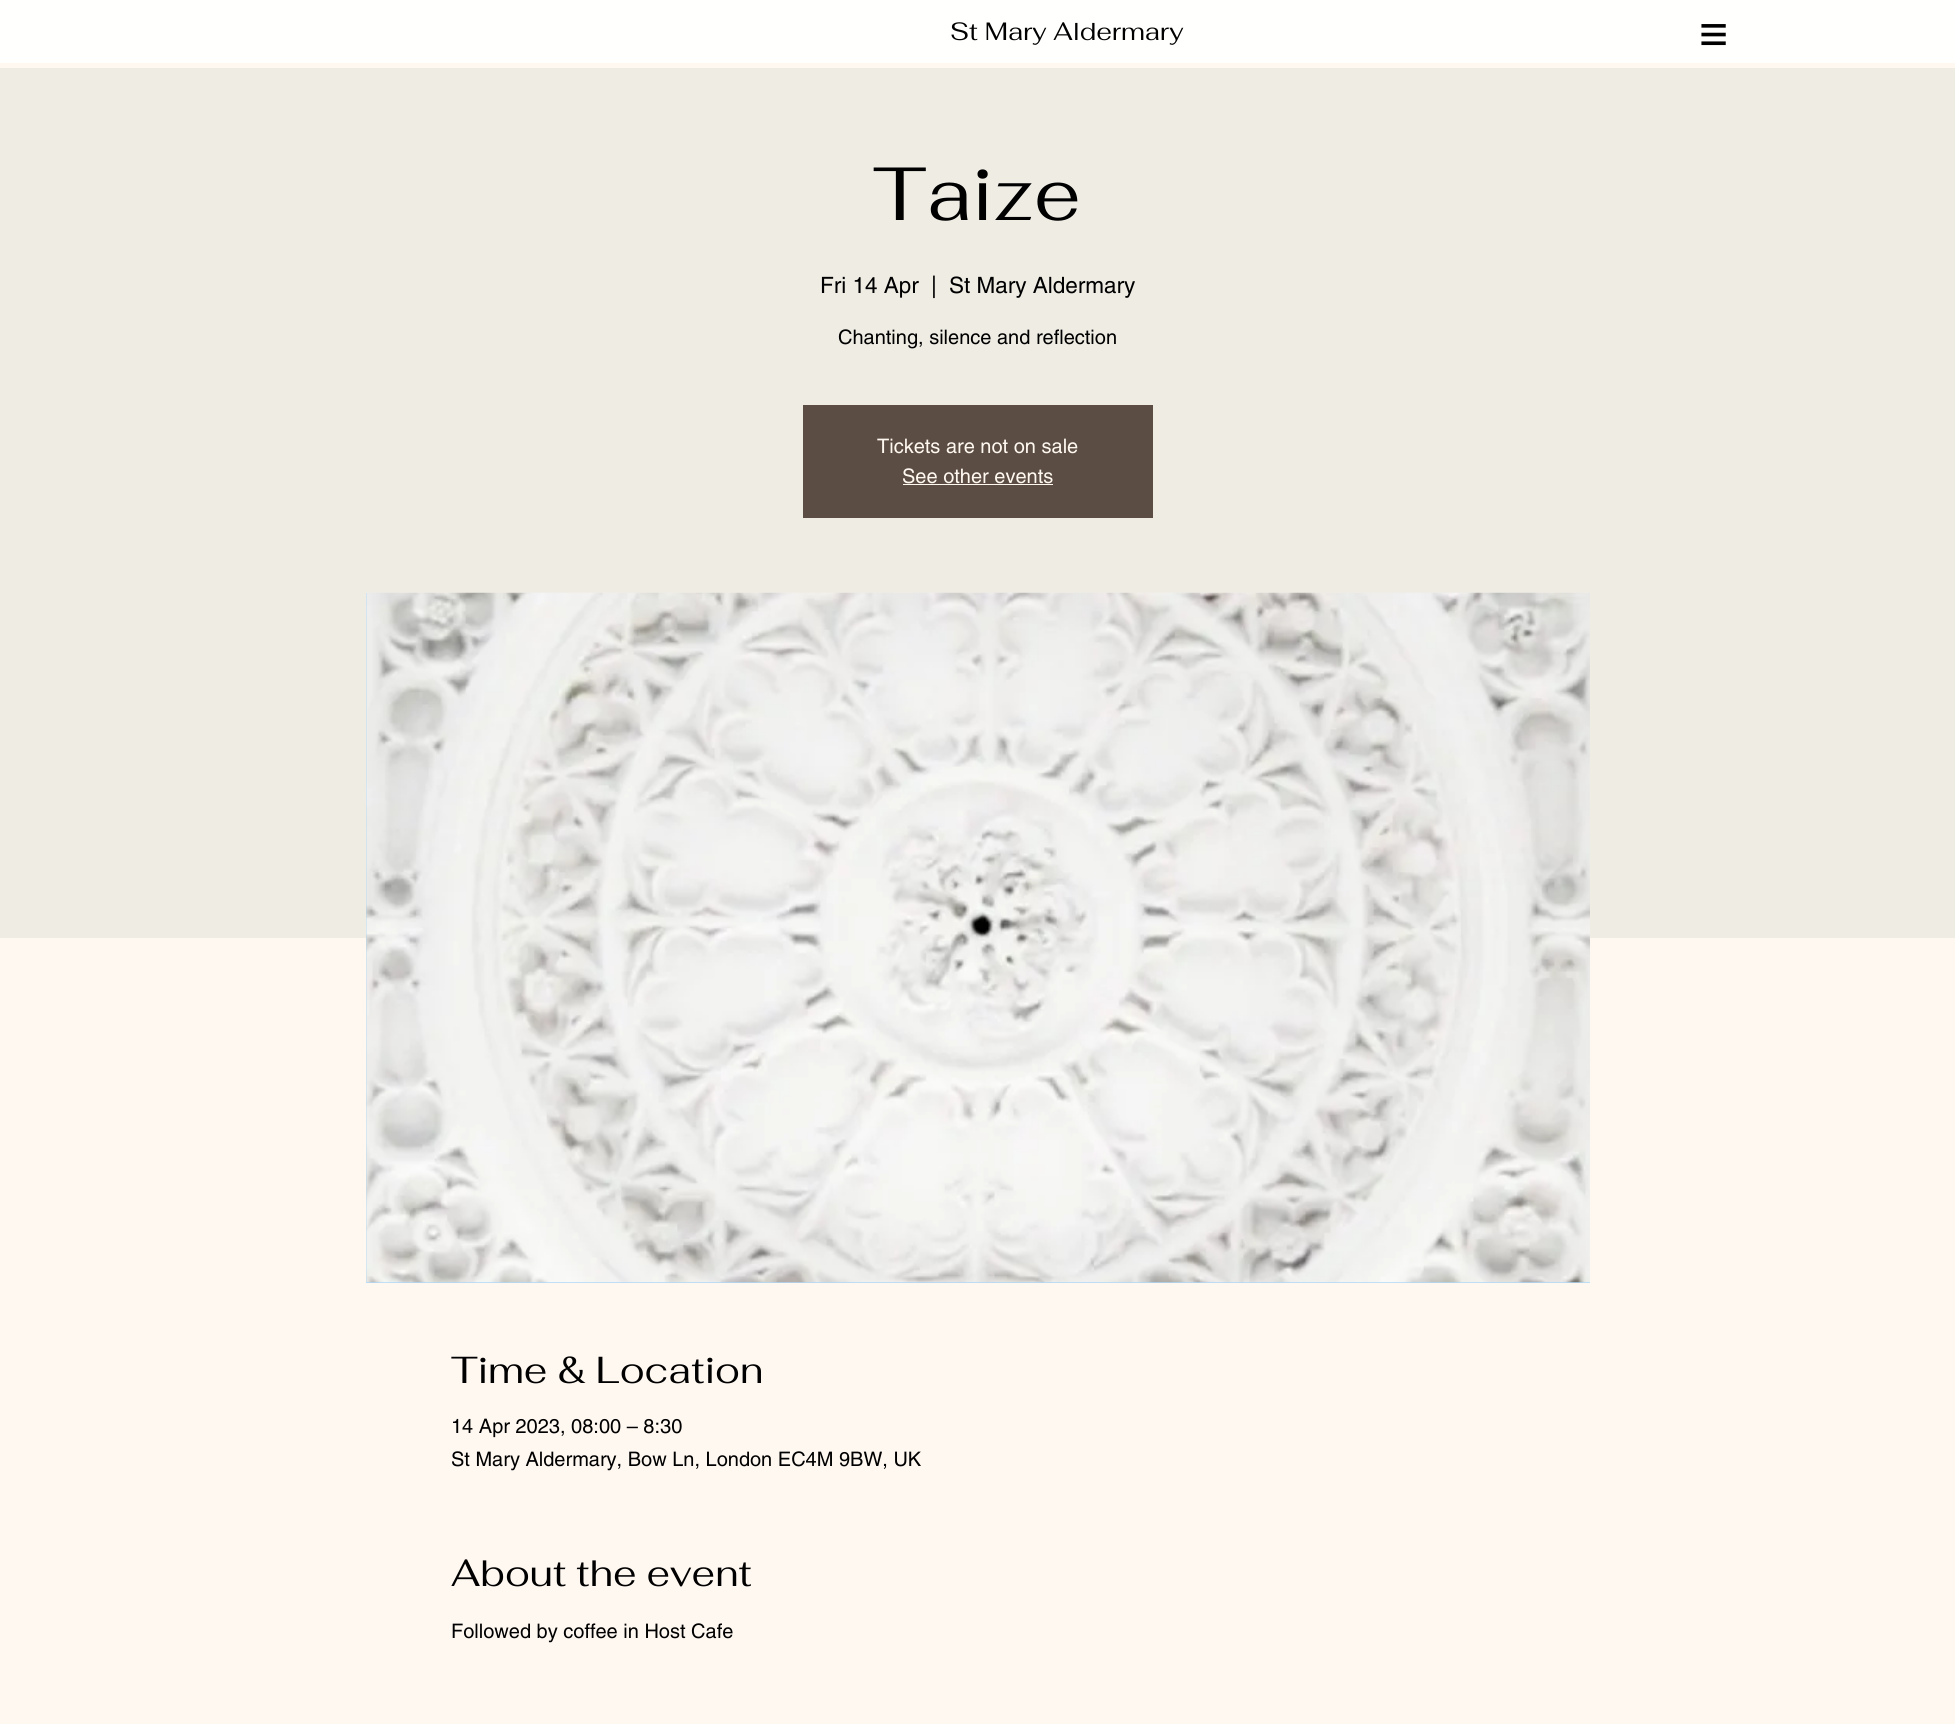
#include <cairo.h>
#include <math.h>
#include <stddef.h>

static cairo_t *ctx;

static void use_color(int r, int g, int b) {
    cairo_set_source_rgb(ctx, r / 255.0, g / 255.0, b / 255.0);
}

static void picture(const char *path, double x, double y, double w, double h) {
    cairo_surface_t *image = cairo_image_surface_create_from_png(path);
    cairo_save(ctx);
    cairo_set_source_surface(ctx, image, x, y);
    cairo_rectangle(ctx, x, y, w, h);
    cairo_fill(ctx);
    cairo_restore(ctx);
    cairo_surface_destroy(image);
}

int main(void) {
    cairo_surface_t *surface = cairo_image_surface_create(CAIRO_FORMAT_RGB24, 1955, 1724);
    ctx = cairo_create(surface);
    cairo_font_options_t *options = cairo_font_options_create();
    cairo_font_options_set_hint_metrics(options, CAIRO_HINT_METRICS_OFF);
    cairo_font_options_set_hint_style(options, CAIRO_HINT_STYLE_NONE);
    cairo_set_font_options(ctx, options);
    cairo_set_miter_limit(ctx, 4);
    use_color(255, 248, 241);
    cairo_paint(ctx);
    use_color(255, 255, 254);
    cairo_rectangle(ctx, 0, 0, 1955, 63);
    cairo_fill(ctx);
    cairo_select_font_face(ctx, "Fahkwang", CAIRO_FONT_SLANT_NORMAL, CAIRO_FONT_WEIGHT_NORMAL);
    cairo_set_font_size(ctx, 25);
    use_color(0, 0, 0);
    cairo_move_to(ctx, 950, 40);
    cairo_show_text(ctx, "St Mary Aldermary");
    cairo_select_font_face(ctx, "Liberation Sans", CAIRO_FONT_SLANT_NORMAL, CAIRO_FONT_WEIGHT_NORMAL);
    cairo_set_font_size(ctx, 50);
    cairo_move_to(ctx, 1699, 51);
    cairo_show_text(ctx, "≡");
    use_color(239, 236, 228);
    cairo_rectangle(ctx, 0, 68, 1955, 870);
    cairo_fill(ctx);
    cairo_select_font_face(ctx, "Fahkwang", CAIRO_FONT_SLANT_NORMAL, CAIRO_FONT_WEIGHT_NORMAL);
    cairo_set_font_size(ctx, 75);
    use_color(0, 0, 0);
    cairo_move_to(ctx, 873, 220);
    cairo_show_text(ctx, "Taize");
    cairo_select_font_face(ctx, "helvetica", CAIRO_FONT_SLANT_NORMAL, CAIRO_FONT_WEIGHT_NORMAL);
    cairo_set_font_size(ctx, 22.5);
    cairo_move_to(ctx, 820, 293);
    cairo_show_text(ctx, "Fri 14 Apr");
    cairo_move_to(ctx, 931, 293);
    cairo_show_text(ctx, "|");
    cairo_move_to(ctx, 949, 293);
    cairo_show_text(ctx, "St Mary Aldermary");
    cairo_set_font_size(ctx, 20);
    cairo_move_to(ctx, 838, 344);
    cairo_show_text(ctx, "Chanting, silence and reflection");
    use_color(91, 77, 67);
    cairo_rectangle(ctx, 803, 405, 350, 113);
    cairo_fill(ctx);
    use_color(255, 248, 241);
    cairo_move_to(ctx, 877, 453);
    cairo_show_text(ctx, "Tickets are not on sale");
    cairo_move_to(ctx, 902, 483);
    cairo_show_text(ctx, "See other events");
    cairo_rectangle(ctx, 903, 484, 150, 1);
    cairo_fill(ctx);
    use_color(176, 215, 247);
    cairo_rectangle(ctx, 366, 593, 1224, 690);
    cairo_fill(ctx);
    picture("img1.png", 366, 592, 1224, 691);
    cairo_select_font_face(ctx, "Fahkwang", CAIRO_FONT_SLANT_NORMAL, CAIRO_FONT_WEIGHT_NORMAL);
    cairo_set_font_size(ctx, 37.5);
    use_color(0, 0, 0);
    cairo_move_to(ctx, 451, 1383);
    cairo_show_text(ctx, "Time & Location");
    cairo_select_font_face(ctx, "helvetica", CAIRO_FONT_SLANT_NORMAL, CAIRO_FONT_WEIGHT_NORMAL);
    cairo_set_font_size(ctx, 20);
    cairo_move_to(ctx, 451, 1433);
    cairo_show_text(ctx, "14 Apr 2023, 08:00 – 8:30");
    cairo_move_to(ctx, 451, 1466);
    cairo_show_text(ctx, "St Mary Aldermary, Bow Ln, London EC4M 9BW, UK");
    cairo_select_font_face(ctx, "Fahkwang", CAIRO_FONT_SLANT_NORMAL, CAIRO_FONT_WEIGHT_NORMAL);
    cairo_set_font_size(ctx, 37.5);
    cairo_move_to(ctx, 451, 1586);
    cairo_show_text(ctx, "About the event");
    cairo_select_font_face(ctx, "helvetica", CAIRO_FONT_SLANT_NORMAL, CAIRO_FONT_WEIGHT_NORMAL);
    cairo_set_font_size(ctx, 20);
    cairo_move_to(ctx, 451, 1638);
    cairo_show_text(ctx, "Followed by coffee in Host Cafe");
    cairo_surface_write_to_png(surface, "result.png");
    cairo_font_options_destroy(options);
    cairo_destroy(ctx);
    cairo_surface_destroy(surface);
    return 0;
}
